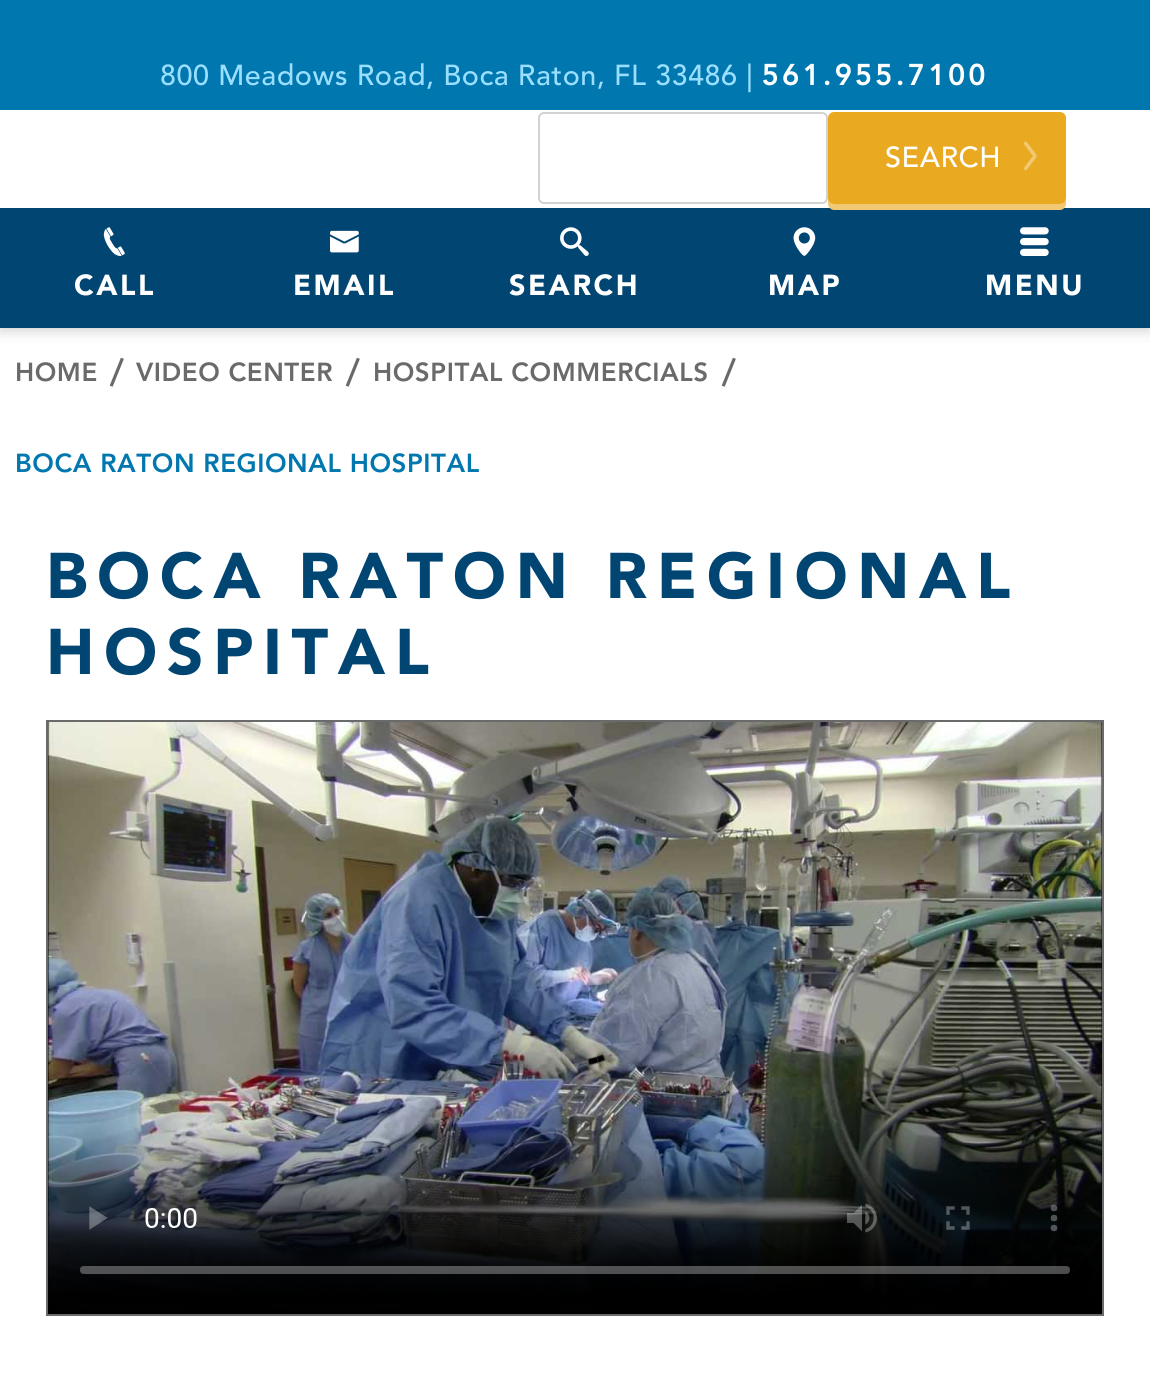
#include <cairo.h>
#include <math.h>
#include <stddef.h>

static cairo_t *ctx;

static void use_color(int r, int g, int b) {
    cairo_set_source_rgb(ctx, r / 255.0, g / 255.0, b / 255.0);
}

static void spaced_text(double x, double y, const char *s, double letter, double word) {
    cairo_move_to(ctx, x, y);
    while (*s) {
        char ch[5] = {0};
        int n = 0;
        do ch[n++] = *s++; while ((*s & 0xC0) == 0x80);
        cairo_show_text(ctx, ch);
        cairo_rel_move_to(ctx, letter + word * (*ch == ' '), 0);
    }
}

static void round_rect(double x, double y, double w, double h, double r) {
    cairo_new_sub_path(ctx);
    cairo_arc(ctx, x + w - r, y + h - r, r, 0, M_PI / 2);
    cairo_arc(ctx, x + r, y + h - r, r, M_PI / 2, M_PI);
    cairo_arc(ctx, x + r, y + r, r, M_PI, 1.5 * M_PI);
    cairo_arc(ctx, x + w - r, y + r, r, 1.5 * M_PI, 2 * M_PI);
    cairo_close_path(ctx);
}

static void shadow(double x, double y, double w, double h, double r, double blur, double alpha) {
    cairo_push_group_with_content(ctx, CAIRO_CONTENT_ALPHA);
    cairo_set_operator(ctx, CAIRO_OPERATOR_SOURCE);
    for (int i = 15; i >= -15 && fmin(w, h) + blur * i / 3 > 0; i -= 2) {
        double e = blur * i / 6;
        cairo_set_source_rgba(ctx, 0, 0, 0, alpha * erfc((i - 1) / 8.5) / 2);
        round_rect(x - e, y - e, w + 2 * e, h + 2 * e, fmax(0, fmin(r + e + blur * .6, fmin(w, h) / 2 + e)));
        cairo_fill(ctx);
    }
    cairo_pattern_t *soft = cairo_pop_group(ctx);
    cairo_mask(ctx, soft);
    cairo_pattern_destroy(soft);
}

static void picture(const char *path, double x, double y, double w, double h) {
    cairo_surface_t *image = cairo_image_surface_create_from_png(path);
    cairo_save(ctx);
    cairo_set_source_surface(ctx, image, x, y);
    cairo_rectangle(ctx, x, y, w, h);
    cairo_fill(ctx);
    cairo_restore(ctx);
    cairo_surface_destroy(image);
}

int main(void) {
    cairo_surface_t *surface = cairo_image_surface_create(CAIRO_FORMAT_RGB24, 1150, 1394);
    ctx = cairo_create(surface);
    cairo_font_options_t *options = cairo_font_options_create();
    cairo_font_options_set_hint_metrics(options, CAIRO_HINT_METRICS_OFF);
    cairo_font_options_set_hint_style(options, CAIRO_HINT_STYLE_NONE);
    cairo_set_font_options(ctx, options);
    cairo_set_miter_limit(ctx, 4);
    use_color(255, 255, 255);
    cairo_paint(ctx);
    use_color(0, 0, 0);
    shadow(0, 0, 1150, 328, 0, 8, 0.25);
    use_color(0, 119, 174);
    cairo_rectangle(ctx, 0, 0, 1150, 110);
    cairo_fill(ctx);
    cairo_select_font_face(ctx, "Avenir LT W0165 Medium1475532 Medium", CAIRO_FONT_SLANT_NORMAL, CAIRO_FONT_WEIGHT_NORMAL);
    cairo_set_font_size(ctx, 28.75);
    use_color(154, 223, 255);
    spaced_text(160, 85, "800 Meadows Road, Boca Raton, FL 33486 |", 0.55, 0);
    cairo_select_font_face(ctx, "Avenir LT W0165 Medium1475532", CAIRO_FONT_SLANT_NORMAL, CAIRO_FONT_WEIGHT_BOLD);
    use_color(255, 255, 255);
    spaced_text(762, 85, "561.955.7100", 4.25, 0);
    cairo_rectangle(ctx, 0, 110, 1150, 98);
    cairo_fill(ctx);
    round_rect(539, 113, 288, 90, 5);
    use_color(210, 210, 210);
    cairo_stroke(ctx);
    use_color(1, 69, 115);
    cairo_rectangle(ctx, 0, 208, 1150, 120);
    cairo_fill(ctx);
    use_color(241, 201, 116);
    cairo_new_path(ctx);
    cairo_move_to(ctx, 828, 198);
    cairo_line_to(ctx, 828, 204);
    cairo_curve_to(ctx, 828, 207, 831, 210, 834, 210);
    cairo_line_to(ctx, 1060, 210);
    cairo_curve_to(ctx, 1063, 210, 1066, 207, 1066, 204);
    cairo_line_to(ctx, 1066, 198);
    cairo_curve_to(ctx, 1066, 201, 1063, 204, 1060, 204);
    cairo_line_to(ctx, 834, 204);
    cairo_curve_to(ctx, 831, 204, 828, 201, 828, 198);
    cairo_close_path(ctx);
    cairo_fill(ctx);
    use_color(233, 170, 34);
    round_rect(828, 112, 238, 92, 6);
    cairo_fill(ctx);
    cairo_select_font_face(ctx, "Avenir LT W0165 Medium1475532 Medium", CAIRO_FONT_SLANT_NORMAL, CAIRO_FONT_WEIGHT_NORMAL);
    use_color(255, 255, 255);
    spaced_text(885, 167, "SEARCH", 0.55, 0);
    picture("img1.png", 1024, 141, 13, 30);
    picture("img2.png", 103, 227, 22, 29);
    cairo_select_font_face(ctx, "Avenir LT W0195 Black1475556 Black", CAIRO_FONT_SLANT_NORMAL, CAIRO_FONT_WEIGHT_NORMAL);
    spaced_text(74, 295, "CALL", 2.5, 0);
    picture("img3.png", 330, 230, 29, 23);
    spaced_text(293, 295, "EMAIL", 2.5, 0);
    picture("img4.png", 560, 227, 29, 29);
    spaced_text(509, 295, "SEARCH", 2.5, 0);
    picture("img5.png", 793, 227, 23, 29);
    spaced_text(768, 295, "MAP", 2.5, 0);
    picture("img6.png", 1020, 227, 29, 29);
    spaced_text(985, 295, "MENU", 2.5, 0);
    cairo_select_font_face(ctx, "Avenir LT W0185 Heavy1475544 Black", CAIRO_FONT_SLANT_NORMAL, CAIRO_FONT_WEIGHT_NORMAL);
    cairo_set_font_size(ctx, 25.9);
    use_color(106, 106, 106);
    spaced_text(15, 381, "HOME", 0.55, 0);
    cairo_set_font_size(ctx, 36);
    spaced_text(110, 385, "/", 0.55, 0);
    cairo_set_font_size(ctx, 25.9);
    spaced_text(136, 381, "VIDEO CENTER", 0.55, 0);
    cairo_set_font_size(ctx, 36);
    spaced_text(346, 385, "/", 0.55, 0);
    cairo_set_font_size(ctx, 25.9);
    spaced_text(373, 381, "HOSPITAL COMMERCIALS", 0.55, 0);
    cairo_set_font_size(ctx, 36);
    spaced_text(722, 385, "/", 0.55, 0);
    cairo_set_font_size(ctx, 25.9);
    use_color(0, 119, 174);
    spaced_text(15, 472, "BOCA RATON REGIONAL HOSPITAL", 0.55, 0);
    cairo_select_font_face(ctx, "Avenir LT W0195 Black1475556 Black", CAIRO_FONT_SLANT_NORMAL, CAIRO_FONT_WEIGHT_NORMAL);
    cairo_set_font_size(ctx, 63.9);
    use_color(1, 69, 115);
    spaced_text(46, 598, "BOCA RATON REGIONAL", 9.6, 0);
    spaced_text(46, 674, "HOSPITAL", 9.6, 0);
    cairo_rectangle(ctx, 47, 721, 1056, 594);
    use_color(106, 106, 106);
    cairo_stroke(ctx);
    picture("img7.png", 48, 722, 1054, 592);
    cairo_surface_write_to_png(surface, "result.png");
    cairo_font_options_destroy(options);
    cairo_destroy(ctx);
    cairo_surface_destroy(surface);
    return 0;
}
